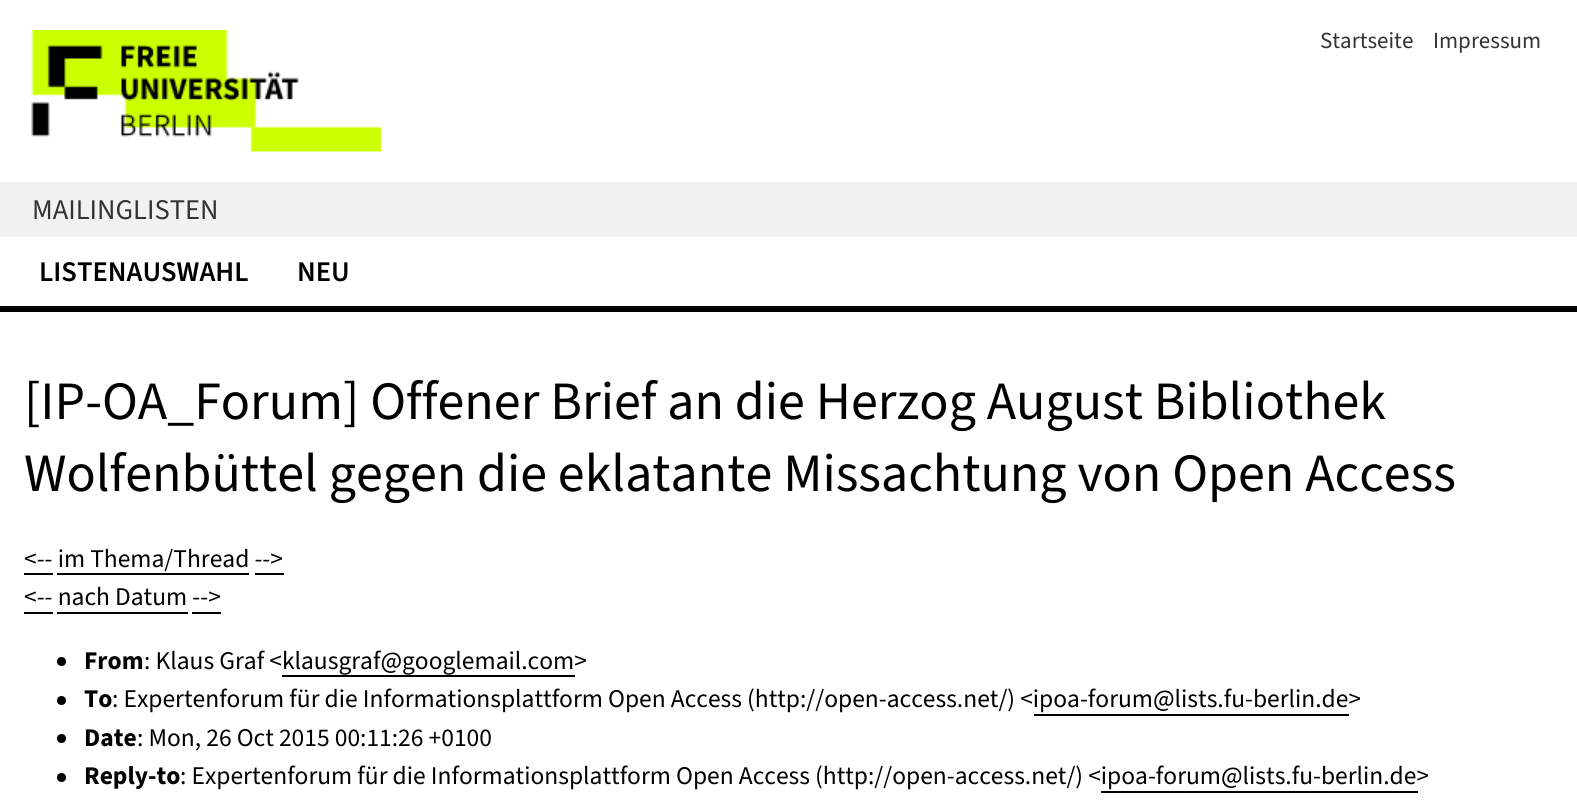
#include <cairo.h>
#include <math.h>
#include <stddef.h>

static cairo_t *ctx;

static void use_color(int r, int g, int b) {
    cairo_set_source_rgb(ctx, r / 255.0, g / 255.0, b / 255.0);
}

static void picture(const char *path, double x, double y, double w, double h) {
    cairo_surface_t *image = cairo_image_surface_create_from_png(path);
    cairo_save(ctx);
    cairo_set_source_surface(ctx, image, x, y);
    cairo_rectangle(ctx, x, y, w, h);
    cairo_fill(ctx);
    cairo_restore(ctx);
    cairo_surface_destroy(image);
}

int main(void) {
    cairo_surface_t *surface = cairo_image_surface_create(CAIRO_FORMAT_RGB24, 1577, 810);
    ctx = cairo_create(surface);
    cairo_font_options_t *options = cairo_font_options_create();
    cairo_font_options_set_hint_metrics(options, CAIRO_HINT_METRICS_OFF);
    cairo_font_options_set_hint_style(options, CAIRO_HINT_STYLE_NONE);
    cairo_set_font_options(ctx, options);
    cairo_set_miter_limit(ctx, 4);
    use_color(255, 255, 255);
    cairo_paint(ctx);
    picture("img1.png", 31, 30, 351, 122);
    cairo_select_font_face(ctx, "Source Sans 3", CAIRO_FONT_SLANT_NORMAL, CAIRO_FONT_WEIGHT_NORMAL);
    cairo_set_font_size(ctx, 23);
    use_color(51, 51, 51);
    cairo_move_to(ctx, 1320, 48);
    cairo_show_text(ctx, "Startseite");
    cairo_move_to(ctx, 1433, 48);
    cairo_show_text(ctx, "Impressum");
    use_color(241, 241, 241);
    cairo_rectangle(ctx, 0, 182, 1577, 55);
    cairo_fill(ctx);
    cairo_set_font_size(ctx, 28.5);
    use_color(51, 51, 51);
    cairo_move_to(ctx, 32, 219);
    cairo_show_text(ctx, "MAILINGLISTEN");
    use_color(0, 0, 0);
    cairo_rectangle(ctx, 0, 306, 1577, 6);
    cairo_fill(ctx);
    cairo_select_font_face(ctx, "Source Sans 3 SemiBold", CAIRO_FONT_SLANT_NORMAL, CAIRO_FONT_WEIGHT_NORMAL);
    cairo_move_to(ctx, 39, 281);
    cairo_show_text(ctx, "LISTENAUSWAHL");
    cairo_move_to(ctx, 297, 281);
    cairo_show_text(ctx, "NEU");
    cairo_select_font_face(ctx, "Source Sans 3", CAIRO_FONT_SLANT_NORMAL, CAIRO_FONT_WEIGHT_NORMAL);
    cairo_set_font_size(ctx, 54);
    cairo_move_to(ctx, 24, 419);
    cairo_show_text(ctx, "[IP-OA_Forum] Offener Brief an die Herzog August Bibliothek");
    cairo_move_to(ctx, 24, 491);
    cairo_show_text(ctx, "Wolfenbüttel gegen die eklatante Missachtung von Open Access");
    cairo_set_font_size(ctx, 25.5);
    cairo_move_to(ctx, 24, 567);
    cairo_show_text(ctx, "<-- im Thema/Thread -->");
    cairo_rectangle(ctx, 24, 573, 29, 2);
    cairo_fill(ctx);
    cairo_rectangle(ctx, 57, 573, 192, 2);
    cairo_fill(ctx);
    cairo_rectangle(ctx, 255, 573, 29, 2);
    cairo_fill(ctx);
    cairo_move_to(ctx, 24, 605);
    cairo_show_text(ctx, "<-- nach Datum -->");
    cairo_rectangle(ctx, 24, 612, 29, 2);
    cairo_fill(ctx);
    cairo_rectangle(ctx, 57, 612, 131, 2);
    cairo_fill(ctx);
    cairo_rectangle(ctx, 192, 612, 29, 2);
    cairo_fill(ctx);
    cairo_arc(ctx, 61.5, 661.5, 4.5, 0, 2 * M_PI);
    cairo_fill(ctx);
    cairo_select_font_face(ctx, "Source Sans 3", CAIRO_FONT_SLANT_NORMAL, CAIRO_FONT_WEIGHT_BOLD);
    cairo_move_to(ctx, 84, 669);
    cairo_show_text(ctx, "From");
    cairo_select_font_face(ctx, "Source Sans 3", CAIRO_FONT_SLANT_NORMAL, CAIRO_FONT_WEIGHT_NORMAL);
    cairo_move_to(ctx, 144, 669);
    cairo_show_text(ctx, ": Klaus Graf <klausgraf@googlemail.com>");
    cairo_rectangle(ctx, 282, 675, 293, 2);
    cairo_fill(ctx);
    cairo_arc(ctx, 61.5, 700.5, 4.5, 0, 2 * M_PI);
    cairo_fill(ctx);
    cairo_select_font_face(ctx, "Source Sans 3", CAIRO_FONT_SLANT_NORMAL, CAIRO_FONT_WEIGHT_BOLD);
    cairo_move_to(ctx, 84, 707);
    cairo_show_text(ctx, "To");
    cairo_select_font_face(ctx, "Source Sans 3", CAIRO_FONT_SLANT_NORMAL, CAIRO_FONT_WEIGHT_NORMAL);
    cairo_move_to(ctx, 112, 707);
    cairo_show_text(ctx, ": Expertenforum für die Informationsplattform Open Access (http://open-access.net/) <ipoa-forum@lists.fu-berlin.de>");
    cairo_rectangle(ctx, 1034, 714, 315, 2);
    cairo_fill(ctx);
    cairo_arc(ctx, 61.5, 738.5, 4.5, 0, 2 * M_PI);
    cairo_fill(ctx);
    cairo_select_font_face(ctx, "Source Sans 3", CAIRO_FONT_SLANT_NORMAL, CAIRO_FONT_WEIGHT_BOLD);
    cairo_move_to(ctx, 84, 746);
    cairo_show_text(ctx, "Date");
    cairo_select_font_face(ctx, "Source Sans 3", CAIRO_FONT_SLANT_NORMAL, CAIRO_FONT_WEIGHT_NORMAL);
    cairo_move_to(ctx, 137, 746);
    cairo_show_text(ctx, ": Mon, 26 Oct 2015 00:11:26 +0100");
    cairo_new_path(ctx);
    cairo_arc(ctx, 61.5, 777.5, 4.5, 0, 2 * M_PI);
    cairo_fill(ctx);
    cairo_select_font_face(ctx, "Source Sans 3", CAIRO_FONT_SLANT_NORMAL, CAIRO_FONT_WEIGHT_BOLD);
    cairo_move_to(ctx, 84, 784);
    cairo_show_text(ctx, "Reply-to");
    cairo_select_font_face(ctx, "Source Sans 3", CAIRO_FONT_SLANT_NORMAL, CAIRO_FONT_WEIGHT_NORMAL);
    cairo_move_to(ctx, 180, 784);
    cairo_show_text(ctx, ": Expertenforum für die Informationsplattform Open Access (http://open-access.net/) <ipoa-forum@lists.fu-berlin.de>");
    cairo_rectangle(ctx, 1101, 791, 317, 2);
    cairo_fill(ctx);
    cairo_surface_write_to_png(surface, "result.png");
    cairo_font_options_destroy(options);
    cairo_destroy(ctx);
    cairo_surface_destroy(surface);
    return 0;
}
